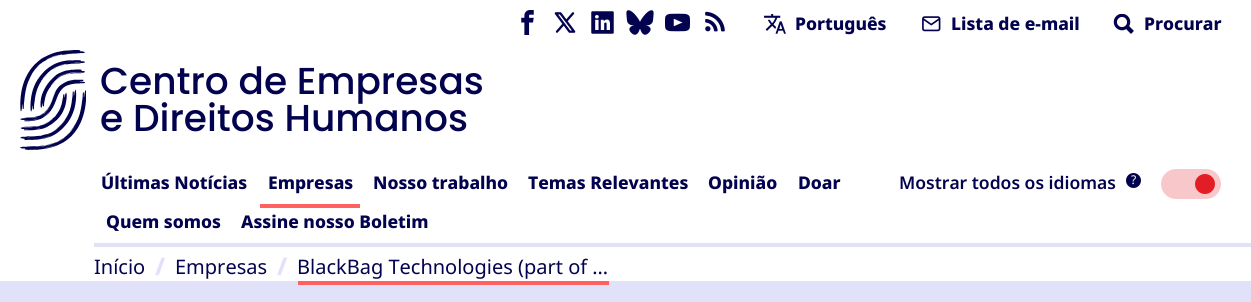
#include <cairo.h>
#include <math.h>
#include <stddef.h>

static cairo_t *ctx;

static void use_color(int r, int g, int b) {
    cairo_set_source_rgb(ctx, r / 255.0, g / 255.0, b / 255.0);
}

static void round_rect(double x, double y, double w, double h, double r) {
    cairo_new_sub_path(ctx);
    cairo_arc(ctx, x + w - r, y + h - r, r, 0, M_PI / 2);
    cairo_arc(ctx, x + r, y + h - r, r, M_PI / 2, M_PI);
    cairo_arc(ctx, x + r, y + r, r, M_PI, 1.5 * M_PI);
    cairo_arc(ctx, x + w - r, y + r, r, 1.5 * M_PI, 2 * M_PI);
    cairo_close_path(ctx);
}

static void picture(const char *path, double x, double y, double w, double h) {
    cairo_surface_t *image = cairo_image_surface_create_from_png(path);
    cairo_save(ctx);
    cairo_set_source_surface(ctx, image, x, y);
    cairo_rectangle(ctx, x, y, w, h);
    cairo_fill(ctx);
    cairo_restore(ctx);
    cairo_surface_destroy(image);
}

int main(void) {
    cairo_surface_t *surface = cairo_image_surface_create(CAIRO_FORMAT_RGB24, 1251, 302);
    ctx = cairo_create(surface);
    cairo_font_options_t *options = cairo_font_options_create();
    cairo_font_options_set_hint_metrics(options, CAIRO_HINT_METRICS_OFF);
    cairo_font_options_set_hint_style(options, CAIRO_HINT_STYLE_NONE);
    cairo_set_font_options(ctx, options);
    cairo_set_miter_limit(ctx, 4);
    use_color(255, 255, 255);
    cairo_paint(ctx);
    picture("img1.png", 521, 10, 13, 25);
    picture("img2.png", 554, 12, 22, 21);
    picture("img3.png", 591, 11, 23, 23);
    picture("img4.png", 626, 10, 28, 25);
    picture("img5.png", 665, 13, 25, 19);
    picture("img6.png", 705, 11, 20, 21);
    picture("img7.png", 764, 14, 22, 20);
    cairo_select_font_face(ctx, "Noto Sans ExtraBold", CAIRO_FONT_SLANT_NORMAL, CAIRO_FONT_WEIGHT_NORMAL);
    cairo_set_font_size(ctx, 17.5);
    use_color(2, 2, 79);
    cairo_move_to(ctx, 795, 30);
    cairo_show_text(ctx, "Português");
    picture("img8.png", 922, 16, 19, 16);
    cairo_move_to(ctx, 951, 30);
    cairo_show_text(ctx, "Lista de e-mail");
    picture("img9.png", 1113, 14, 21, 20);
    cairo_move_to(ctx, 1144, 30);
    cairo_show_text(ctx, "Procurar");
    picture("img10.png", 20, 50, 66, 100);
    cairo_select_font_face(ctx, "Poppins Medium", CAIRO_FONT_SLANT_NORMAL, CAIRO_FONT_WEIGHT_NORMAL);
    cairo_set_font_size(ctx, 37.5);
    cairo_move_to(ctx, 100, 94);
    cairo_show_text(ctx, "Centro de Empresas");
    cairo_move_to(ctx, 100, 131);
    cairo_show_text(ctx, "e Direitos Humanos");
    use_color(225, 225, 249);
    cairo_rectangle(ctx, 94, 243, 1157, 4);
    cairo_fill(ctx);
    cairo_select_font_face(ctx, "Noto Sans ExtraBold", CAIRO_FONT_SLANT_NORMAL, CAIRO_FONT_WEIGHT_NORMAL);
    cairo_set_font_size(ctx, 17.5);
    use_color(2, 2, 79);
    cairo_move_to(ctx, 101, 189);
    cairo_show_text(ctx, "Últimas Notícias");
    cairo_move_to(ctx, 268, 189);
    cairo_show_text(ctx, "Empresas");
    use_color(255, 96, 96);
    cairo_rectangle(ctx, 260, 204, 100, 4);
    cairo_fill(ctx);
    use_color(2, 2, 79);
    cairo_move_to(ctx, 373, 189);
    cairo_show_text(ctx, "Nosso trabalho");
    cairo_move_to(ctx, 528, 189);
    cairo_show_text(ctx, "Temas Relevantes");
    cairo_move_to(ctx, 708, 189);
    cairo_show_text(ctx, "Opinião");
    cairo_move_to(ctx, 798, 189);
    cairo_show_text(ctx, "Doar");
    cairo_move_to(ctx, 106, 228);
    cairo_show_text(ctx, "Quem somos");
    cairo_move_to(ctx, 241, 228);
    cairo_show_text(ctx, "Assine nosso Boletim");
    cairo_select_font_face(ctx, "Noto Sans SemiBold", CAIRO_FONT_SLANT_NORMAL, CAIRO_FONT_WEIGHT_NORMAL);
    cairo_move_to(ctx, 899, 189);
    cairo_show_text(ctx, "Mostrar todos os idiomas");
    cairo_new_path(ctx);
    cairo_arc(ctx, 1133.5, 180.5, 7.5, 0, 2 * M_PI);
    cairo_fill(ctx);
    cairo_select_font_face(ctx, "Noto Sans", CAIRO_FONT_SLANT_NORMAL, CAIRO_FONT_WEIGHT_NORMAL);
    cairo_set_font_size(ctx, 12);
    use_color(255, 255, 255);
    cairo_move_to(ctx, 1131, 184);
    cairo_show_text(ctx, "?");
    use_color(248, 199, 201);
    round_rect(1161, 169, 60, 30, 15);
    cairo_fill(ctx);
    use_color(227, 29, 37);
    cairo_arc(ctx, 1205, 184, 10, 0, 2 * M_PI);
    cairo_fill(ctx);
    cairo_set_font_size(ctx, 20);
    use_color(2, 2, 79);
    cairo_move_to(ctx, 94, 274);
    cairo_show_text(ctx, "Início");
    cairo_select_font_face(ctx, "Noto Sans ExtraBold", CAIRO_FONT_SLANT_NORMAL, CAIRO_FONT_WEIGHT_NORMAL);
    cairo_set_font_size(ctx, 24);
    use_color(225, 225, 249);
    cairo_move_to(ctx, 155, 275);
    cairo_show_text(ctx, "/");
    cairo_select_font_face(ctx, "Noto Sans", CAIRO_FONT_SLANT_NORMAL, CAIRO_FONT_WEIGHT_NORMAL);
    cairo_set_font_size(ctx, 20);
    use_color(2, 2, 79);
    cairo_move_to(ctx, 175, 274);
    cairo_show_text(ctx, "Empresas");
    cairo_select_font_face(ctx, "Noto Sans ExtraBold", CAIRO_FONT_SLANT_NORMAL, CAIRO_FONT_WEIGHT_NORMAL);
    cairo_set_font_size(ctx, 24);
    use_color(225, 225, 249);
    cairo_move_to(ctx, 277, 275);
    cairo_show_text(ctx, "/");
    cairo_select_font_face(ctx, "Noto Sans", CAIRO_FONT_SLANT_NORMAL, CAIRO_FONT_WEIGHT_NORMAL);
    cairo_set_font_size(ctx, 20);
    use_color(2, 2, 79);
    cairo_move_to(ctx, 297, 274);
    cairo_show_text(ctx, "BlackBag Technologies (part of …");
    use_color(225, 225, 249);
    cairo_rectangle(ctx, 0, 281, 1251, 21);
    cairo_fill(ctx);
    use_color(255, 96, 96);
    cairo_rectangle(ctx, 298, 281, 311, 4);
    cairo_fill(ctx);
    cairo_surface_write_to_png(surface, "result.png");
    cairo_font_options_destroy(options);
    cairo_destroy(ctx);
    cairo_surface_destroy(surface);
    return 0;
}
